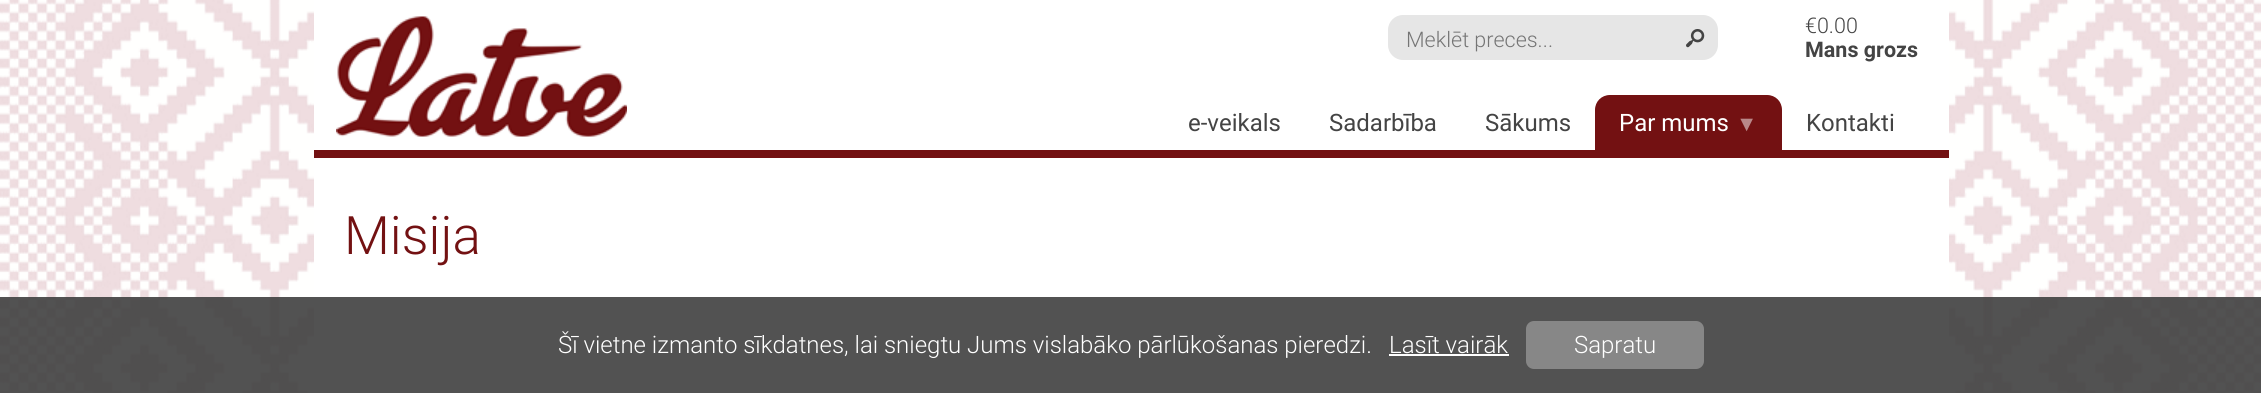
#include <cairo.h>
#include <math.h>
#include <stddef.h>

static cairo_t *ctx;

static void use_color(int r, int g, int b) {
    cairo_set_source_rgb(ctx, r / 255.0, g / 255.0, b / 255.0);
}

static void round_rect(double x, double y, double w, double h, double r) {
    cairo_new_sub_path(ctx);
    cairo_arc(ctx, x + w - r, y + h - r, r, 0, M_PI / 2);
    cairo_arc(ctx, x + r, y + h - r, r, M_PI / 2, M_PI);
    cairo_arc(ctx, x + r, y + r, r, M_PI, 1.5 * M_PI);
    cairo_arc(ctx, x + w - r, y + r, r, 1.5 * M_PI, 2 * M_PI);
    cairo_close_path(ctx);
}

static void picture(const char *path, double x, double y, double w, double h) {
    cairo_surface_t *image = cairo_image_surface_create_from_png(path);
    cairo_save(ctx);
    cairo_set_source_surface(ctx, image, x, y);
    cairo_rectangle(ctx, x, y, w, h);
    cairo_fill(ctx);
    cairo_restore(ctx);
    cairo_surface_destroy(image);
}

int main(void) {
    cairo_surface_t *surface = cairo_image_surface_create(CAIRO_FORMAT_RGB24, 2261, 393);
    ctx = cairo_create(surface);
    cairo_font_options_t *options = cairo_font_options_create();
    cairo_font_options_set_hint_metrics(options, CAIRO_HINT_METRICS_OFF);
    cairo_font_options_set_hint_style(options, CAIRO_HINT_STYLE_NONE);
    cairo_set_font_options(ctx, options);
    cairo_set_miter_limit(ctx, 4);
    use_color(255, 255, 255);
    cairo_paint(ctx);
    picture("img1.png", 0, 0, 2261, 393);
    use_color(255, 255, 255);
    cairo_rectangle(ctx, 314, 0, 1635, 393);
    cairo_fill(ctx);
    picture("img2.png", 336, 16, 291, 121);
    use_color(230, 230, 230);
    round_rect(1388, 15, 330, 45, 15);
    cairo_fill(ctx);
    cairo_select_font_face(ctx, "Roboto Light", CAIRO_FONT_SLANT_NORMAL, CAIRO_FONT_WEIGHT_NORMAL);
    cairo_set_font_size(ctx, 21.5);
    use_color(117, 117, 117);
    cairo_move_to(ctx, 1406, 47);
    cairo_show_text(ctx, "Meklēt preces...");
    picture("img3.png", 1686, 29, 19, 19);
    use_color(68, 68, 68);
    cairo_move_to(ctx, 1805, 33);
    cairo_show_text(ctx, "€0.00");
    cairo_select_font_face(ctx, "Roboto", CAIRO_FONT_SLANT_NORMAL, CAIRO_FONT_WEIGHT_BOLD);
    cairo_move_to(ctx, 1805, 57);
    cairo_show_text(ctx, "Mans grozs");
    cairo_select_font_face(ctx, "Roboto", CAIRO_FONT_SLANT_NORMAL, CAIRO_FONT_WEIGHT_NORMAL);
    cairo_set_font_size(ctx, 24);
    cairo_move_to(ctx, 1188, 131);
    cairo_show_text(ctx, "e-veikals");
    cairo_move_to(ctx, 1329, 131);
    cairo_show_text(ctx, "Sadarbība");
    cairo_move_to(ctx, 1485, 131);
    cairo_show_text(ctx, "Sākums");
    use_color(115, 17, 18);
    cairo_new_path(ctx);
    cairo_move_to(ctx, 1610, 95);
    cairo_line_to(ctx, 1767, 95);
    cairo_curve_to(ctx, 1775.5, 95, 1782, 101.5, 1782, 110);
    cairo_line_to(ctx, 1782, 150);
    cairo_line_to(ctx, 1595, 150);
    cairo_line_to(ctx, 1595, 110);
    cairo_curve_to(ctx, 1595, 101.5, 1601.5, 95, 1610, 95);
    cairo_close_path(ctx);
    cairo_fill(ctx);
    use_color(255, 255, 255);
    cairo_move_to(ctx, 1619, 131);
    cairo_show_text(ctx, "Par mums");
    cairo_select_font_face(ctx, "Liberation Sans", CAIRO_FONT_SLANT_NORMAL, CAIRO_FONT_WEIGHT_NORMAL);
    cairo_set_font_size(ctx, 21.5);
    use_color(185, 136, 137);
    cairo_move_to(ctx, 1736, 131);
    cairo_show_text(ctx, "▼");
    cairo_select_font_face(ctx, "Roboto", CAIRO_FONT_SLANT_NORMAL, CAIRO_FONT_WEIGHT_NORMAL);
    cairo_set_font_size(ctx, 24);
    use_color(68, 68, 68);
    cairo_move_to(ctx, 1806, 131);
    cairo_show_text(ctx, "Kontakti");
    use_color(115, 17, 18);
    cairo_rectangle(ctx, 314, 150, 1635, 8);
    cairo_fill(ctx);
    cairo_select_font_face(ctx, "Roboto Light", CAIRO_FONT_SLANT_NORMAL, CAIRO_FONT_WEIGHT_NORMAL);
    cairo_set_font_size(ctx, 53);
    cairo_move_to(ctx, 344, 254);
    cairo_show_text(ctx, "Misija");
    cairo_set_source_rgba(ctx, 0.251, 0.251, 0.251, 0.9);
    cairo_rectangle(ctx, 0, 297, 2261, 96);
    cairo_fill(ctx);
    cairo_set_font_size(ctx, 24);
    use_color(255, 255, 255);
    cairo_move_to(ctx, 558, 353);
    cairo_show_text(ctx, "Šī vietne izmanto sīkdatnes, lai sniegtu Jums vislabāko pārlūkošanas pieredzi.");
    cairo_move_to(ctx, 1389, 353);
    cairo_show_text(ctx, "Lasīt vairāk");
    cairo_rectangle(ctx, 1389, 354, 120, 2);
    cairo_fill(ctx);
    use_color(135, 135, 135);
    round_rect(1526, 321, 178, 48, 8);
    cairo_fill(ctx);
    use_color(255, 255, 255);
    cairo_move_to(ctx, 1574, 353);
    cairo_show_text(ctx, "Sapratu");
    cairo_surface_write_to_png(surface, "result.png");
    cairo_font_options_destroy(options);
    cairo_destroy(ctx);
    cairo_surface_destroy(surface);
    return 0;
}
